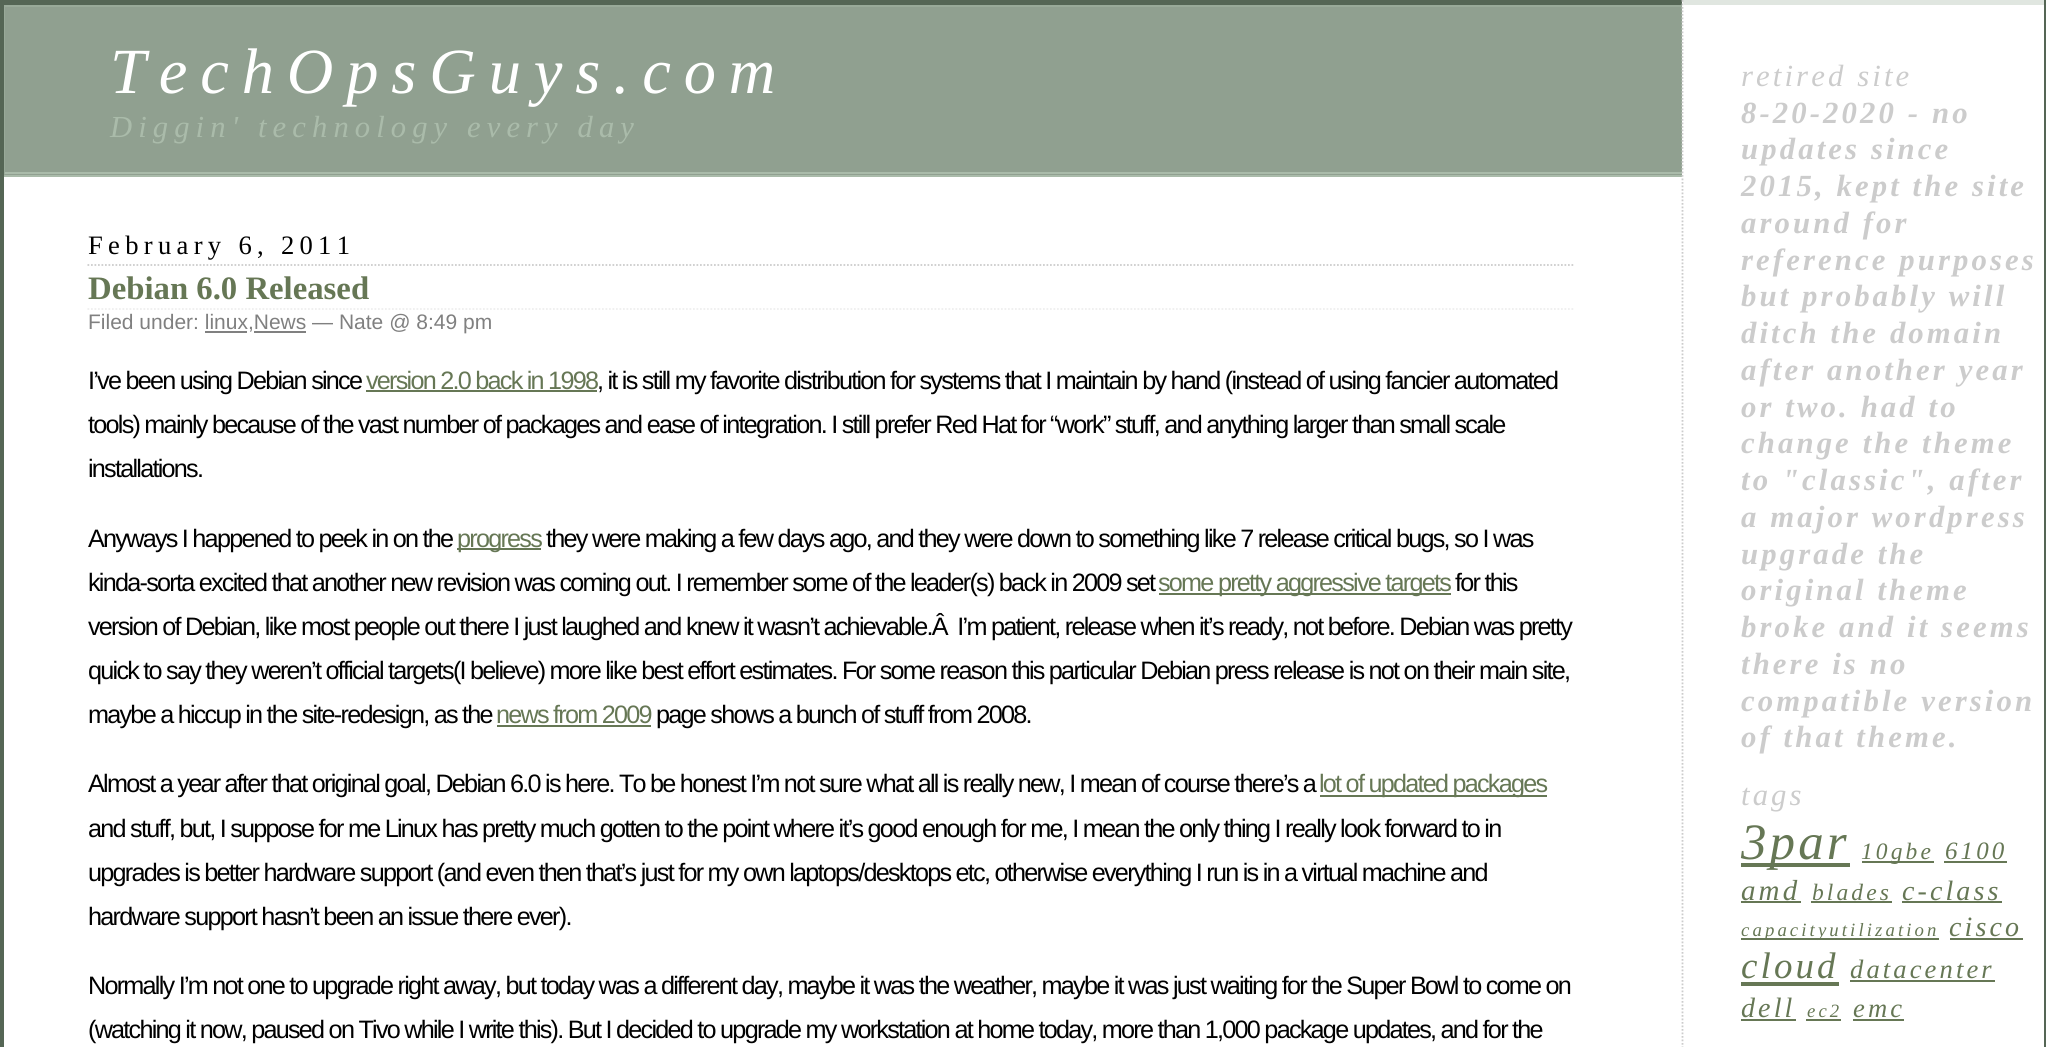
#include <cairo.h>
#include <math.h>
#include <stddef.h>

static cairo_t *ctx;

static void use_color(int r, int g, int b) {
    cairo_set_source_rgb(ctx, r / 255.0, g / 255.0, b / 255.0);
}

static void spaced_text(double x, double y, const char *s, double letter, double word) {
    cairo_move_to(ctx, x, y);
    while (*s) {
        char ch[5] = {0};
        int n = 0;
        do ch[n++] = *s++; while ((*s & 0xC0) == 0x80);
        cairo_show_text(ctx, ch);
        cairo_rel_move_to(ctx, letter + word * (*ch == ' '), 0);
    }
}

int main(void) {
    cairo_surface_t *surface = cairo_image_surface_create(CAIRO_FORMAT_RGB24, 2046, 1047);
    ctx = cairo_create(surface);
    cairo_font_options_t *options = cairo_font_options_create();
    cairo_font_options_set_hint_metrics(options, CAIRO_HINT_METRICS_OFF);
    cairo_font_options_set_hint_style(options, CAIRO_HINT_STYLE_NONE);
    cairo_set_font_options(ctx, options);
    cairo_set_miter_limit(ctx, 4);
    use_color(255, 255, 255);
    cairo_paint(ctx);
    use_color(85, 102, 85);
    cairo_rectangle(ctx, 0, 0, 1682, 5);
    cairo_fill(ctx);
    cairo_rectangle(ctx, 2044, 0, 2, 1047);
    cairo_fill(ctx);
    cairo_rectangle(ctx, 0, 0, 4, 1047);
    cairo_fill(ctx);
    use_color(144, 160, 144);
    cairo_rectangle(ctx, 4, 7, 1678, 168);
    cairo_fill(ctx);
    use_color(153, 170, 153);
    cairo_rectangle(ctx, 4, 5, 1678, 2);
    cairo_fill(ctx);
    use_color(170, 187, 170);
    cairo_rectangle(ctx, 4, 172, 1678, 2);
    cairo_fill(ctx);
    cairo_rectangle(ctx, 4, 175, 1678, 2);
    cairo_fill(ctx);
    use_color(153, 170, 153);
    cairo_new_path(ctx);
    cairo_move_to(ctx, 4, 177);
    cairo_line_to(ctx, 4, 5);
    cairo_line_to(ctx, 5, 7);
    cairo_line_to(ctx, 5, 172);
    cairo_close_path(ctx);
    cairo_fill(ctx);
    cairo_select_font_face(ctx, "Liberation Serif", CAIRO_FONT_SLANT_ITALIC, CAIRO_FONT_WEIGHT_NORMAL);
    cairo_set_font_size(ctx, 64.4);
    use_color(255, 255, 255);
    spaced_text(110, 93, "TechOpsGuys.com", 12.9, 0);
    cairo_set_font_size(ctx, 30.6);
    use_color(170, 187, 170);
    spaced_text(110, 137, "Diggin' technology every day", 6.1, 0);
    use_color(224, 230, 224);
    cairo_new_path(ctx);
    cairo_move_to(ctx, 1682, 0);
    cairo_line_to(ctx, 2044, 0);
    cairo_line_to(ctx, 2044, 5);
    cairo_line_to(ctx, 1684, 5);
    cairo_close_path(ctx);
    cairo_fill(ctx);
    cairo_new_path(ctx);
    cairo_move_to(ctx, 1682.5, 0);
    cairo_line_to(ctx, 1682.5, 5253.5);
    use_color(204, 204, 204);
    cairo_set_line_width(ctx, 1.8);
    cairo_set_dash(ctx, (double[]){1.75, 1.75}, 2, 0);
    cairo_stroke(ctx);
    cairo_set_font_size(ctx, 30.75);
    spaced_text(1741, 86, "retired site", 3.1, 0);
    cairo_select_font_face(ctx, "Liberation Serif", CAIRO_FONT_SLANT_ITALIC, CAIRO_FONT_WEIGHT_BOLD);
    spaced_text(1741, 123, "8-20-2020 - no", 3.1, 0);
    spaced_text(1741, 159, "updates since", 3.1, 0);
    spaced_text(1741, 196, "2015, kept the site", 3.1, 0);
    spaced_text(1741, 233, "around for", 3.1, 0);
    spaced_text(1741, 270, "reference purposes", 3.1, 0);
    spaced_text(1741, 306, "but probably will", 3.1, 0);
    spaced_text(1741, 343, "ditch the domain", 3.1, 0);
    spaced_text(1741, 380, "after another year", 3.1, 0);
    spaced_text(1741, 417, "or two. had to", 3.1, 0);
    spaced_text(1741, 453, "change the theme", 3.1, 0);
    spaced_text(1741, 490, "to \"classic\", after", 3.1, 0);
    spaced_text(1741, 527, "a major wordpress", 3.1, 0);
    spaced_text(1741, 564, "upgrade the", 3.1, 0);
    spaced_text(1741, 600, "original theme", 3.1, 0);
    spaced_text(1741, 637, "broke and it seems", 3.1, 0);
    spaced_text(1741, 674, "there is no", 3.1, 0);
    spaced_text(1741, 711, "compatible version", 3.1, 0);
    spaced_text(1741, 747, "of that theme.", 3.1, 0);
    cairo_select_font_face(ctx, "Liberation Serif", CAIRO_FONT_SLANT_ITALIC, CAIRO_FONT_WEIGHT_NORMAL);
    spaced_text(1741, 805, "tags", 3.1, 0);
    use_color(102, 119, 85);
    cairo_rectangle(ctx, 1741, 863, 109, 4);
    cairo_fill(ctx);
    cairo_set_font_size(ctx, 51);
    spaced_text(1741, 859, "3par", 3.1, 0);
    cairo_rectangle(ctx, 1862, 861, 72, 2);
    cairo_fill(ctx);
    cairo_set_font_size(ctx, 23.5);
    spaced_text(1861, 859, "10gbe", 3.1, 0);
    cairo_set_font_size(ctx, 25);
    spaced_text(1945, 859, "6100", 3.1, 0);
    cairo_rectangle(ctx, 1944, 861, 63, 2);
    cairo_fill(ctx);
    cairo_set_font_size(ctx, 29);
    spaced_text(1741, 900, "amd", 3.1, 0);
    cairo_rectangle(ctx, 1741, 901, 60, 2);
    cairo_fill(ctx);
    cairo_set_font_size(ctx, 23.5);
    spaced_text(1812, 900, "blades", 3.1, 0);
    cairo_rectangle(ctx, 1811, 901, 81, 2);
    cairo_fill(ctx);
    cairo_set_font_size(ctx, 28);
    spaced_text(1902, 900, "c-class", 3.1, 0);
    cairo_rectangle(ctx, 1902, 901, 100, 2);
    cairo_fill(ctx);
    cairo_rectangle(ctx, 1741, 938, 198, 2);
    cairo_fill(ctx);
    cairo_set_font_size(ctx, 18.75);
    spaced_text(1741, 936, "capacityutilization", 3.1, 0);
    cairo_set_font_size(ctx, 28);
    spaced_text(1949, 936, "cisco", 3.1, 0);
    cairo_rectangle(ctx, 1950, 938, 73, 2);
    cairo_fill(ctx);
    cairo_set_font_size(ctx, 37);
    spaced_text(1741, 978, "cloud", 3.1, 0);
    cairo_rectangle(ctx, 1741, 982, 98, 4);
    cairo_fill(ctx);
    cairo_set_font_size(ctx, 26.6);
    spaced_text(1850, 978, "datacenter", 3.1, 0);
    cairo_rectangle(ctx, 1850, 980, 145, 2);
    cairo_fill(ctx);
    cairo_set_font_size(ctx, 28);
    spaced_text(1741, 1017, "dell", 3.1, 0);
    cairo_rectangle(ctx, 1741, 1019, 55, 2);
    cairo_fill(ctx);
    cairo_set_font_size(ctx, 18.75);
    spaced_text(1807, 1017, "ec2", 3.1, 0);
    cairo_rectangle(ctx, 1806, 1019, 35, 2);
    cairo_fill(ctx);
    cairo_set_font_size(ctx, 26.6);
    spaced_text(1853, 1017, "emc", 3.1, 0);
    cairo_rectangle(ctx, 1853, 1019, 51, 2);
    cairo_fill(ctx);
    cairo_new_path(ctx);
    cairo_move_to(ctx, 87.5, 265);
    cairo_line_to(ctx, 1575, 265);
    use_color(204, 204, 204);
    cairo_stroke(ctx);
    cairo_select_font_face(ctx, "Liberation Serif", CAIRO_FONT_SLANT_NORMAL, CAIRO_FONT_WEIGHT_NORMAL);
    use_color(0, 0, 0);
    spaced_text(88, 254, "February 6, 2011", 5.3, 0);
    cairo_new_path(ctx);
    cairo_move_to(ctx, 87.5, 309);
    cairo_line_to(ctx, 1575, 309);
    use_color(238, 238, 238);
    cairo_stroke(ctx);
    cairo_select_font_face(ctx, "Liberation Serif", CAIRO_FONT_SLANT_NORMAL, CAIRO_FONT_WEIGHT_BOLD);
    cairo_set_font_size(ctx, 32.75);
    use_color(102, 119, 85);
    cairo_move_to(ctx, 88, 299);
    cairo_show_text(ctx, "Debian 6.0 Released");
    cairo_select_font_face(ctx, "Liberation Sans", CAIRO_FONT_SLANT_NORMAL, CAIRO_FONT_WEIGHT_NORMAL);
    cairo_set_font_size(ctx, 21);
    use_color(128, 128, 128);
    cairo_move_to(ctx, 88, 329);
    cairo_show_text(ctx, "Filed under: linux,News — Nate @ 8:49 pm");
    cairo_rectangle(ctx, 205, 331, 42, 2);
    cairo_fill(ctx);
    cairo_rectangle(ctx, 254, 331, 52, 2);
    cairo_fill(ctx);
    cairo_set_font_size(ctx, 25.2);
    use_color(0, 0, 0);
    spaced_text(88, 389, "I’ve been using Debian since", -1.75, 0);
    use_color(102, 119, 85);
    spaced_text(366, 389, "version 2.0 back in 1998", -1.75, 0);
    cairo_rectangle(ctx, 366, 390, 231, 2);
    cairo_fill(ctx);
    use_color(0, 0, 0);
    spaced_text(597, 389, ", it is still my favorite distribution for systems that I maintain by hand (instead of using fancier automated", -1.75, 0);
    spaced_text(88, 433, "tools) mainly because of the vast number of packages and ease of integration. I still prefer Red Hat for “work” stuff, and anything larger than small scale", -1.75, 0);
    spaced_text(88, 477, "installations.", -1.75, 0);
    spaced_text(88, 547, "Anyways I happened to peek in on the", -1.75, 0);
    use_color(102, 119, 85);
    cairo_rectangle(ctx, 457, 548, 84, 2);
    cairo_fill(ctx);
    spaced_text(457, 547, "progress", -1.75, 0);
    use_color(0, 0, 0);
    spaced_text(546, 547, "they were making a few days ago, and they were down to something like 7 release critical bugs, so I was", -1.75, 0);
    spaced_text(88, 591, "kinda-sorta excited that another new revision was coming out. I remember some of the leader(s) back in 2009 set", -1.75, 0);
    use_color(102, 119, 85);
    cairo_rectangle(ctx, 1159, 593, 292, 2);
    cairo_fill(ctx);
    spaced_text(1158, 591, "some pretty aggressive targets", -1.75, 0);
    use_color(0, 0, 0);
    spaced_text(1455, 591, "for this", -1.75, 0);
    spaced_text(88, 635, "version of Debian, like most people out there I just laughed and knew it wasn’t achievable.Â  I’m patient, release when it’s ready, not before. Debian was pretty", -1.75, 0);
    spaced_text(88, 679, "quick to say they weren’t official targets(I believe) more like best effort estimates. For some reason this particular Debian press release is not on their main site,", -1.75, 0);
    spaced_text(88, 723, "maybe a hiccup in the site-redesign, as the", -1.75, 0);
    use_color(102, 119, 85);
    spaced_text(496, 723, "news from 2009", -1.75, 0);
    cairo_rectangle(ctx, 497, 725, 154, 2);
    cairo_fill(ctx);
    use_color(0, 0, 0);
    spaced_text(656, 723, "page shows a bunch of stuff from 2008.", -1.75, 0);
    spaced_text(88, 792, "Almost a year after that original goal, Debian 6.0 is here. To be honest I’m not sure what all is really new, I mean of course there’s a", -1.75, 0);
    use_color(102, 119, 85);
    cairo_rectangle(ctx, 1320, 795, 227, 2);
    cairo_fill(ctx);
    spaced_text(1319, 792, "lot of updated packages", -1.75, 0);
    use_color(0, 0, 0);
    spaced_text(88, 837, "and stuff, but, I suppose for me Linux has pretty much gotten to the point where it’s good enough for me, I mean the only thing I really look forward to in", -1.75, 0);
    spaced_text(88, 881, "upgrades is better hardware support (and even then that’s just for my own laptops/desktops etc, otherwise everything I run is in a virtual machine and", -1.75, 0);
    spaced_text(88, 925, "hardware support hasn’t been an issue there ever).", -1.75, 0);
    spaced_text(88, 994, "Normally I’m not one to upgrade right away, but today was a different day, maybe it was the weather, maybe it was just waiting for the Super Bowl to come on", -1.75, 0);
    spaced_text(88, 1038, "(watching it now, paused on Tivo while I write this). But I decided to upgrade my workstation at home today, more than 1,000 package updates, and for the", -1.75, 0);
    cairo_surface_write_to_png(surface, "result.png");
    cairo_font_options_destroy(options);
    cairo_destroy(ctx);
    cairo_surface_destroy(surface);
    return 0;
}
